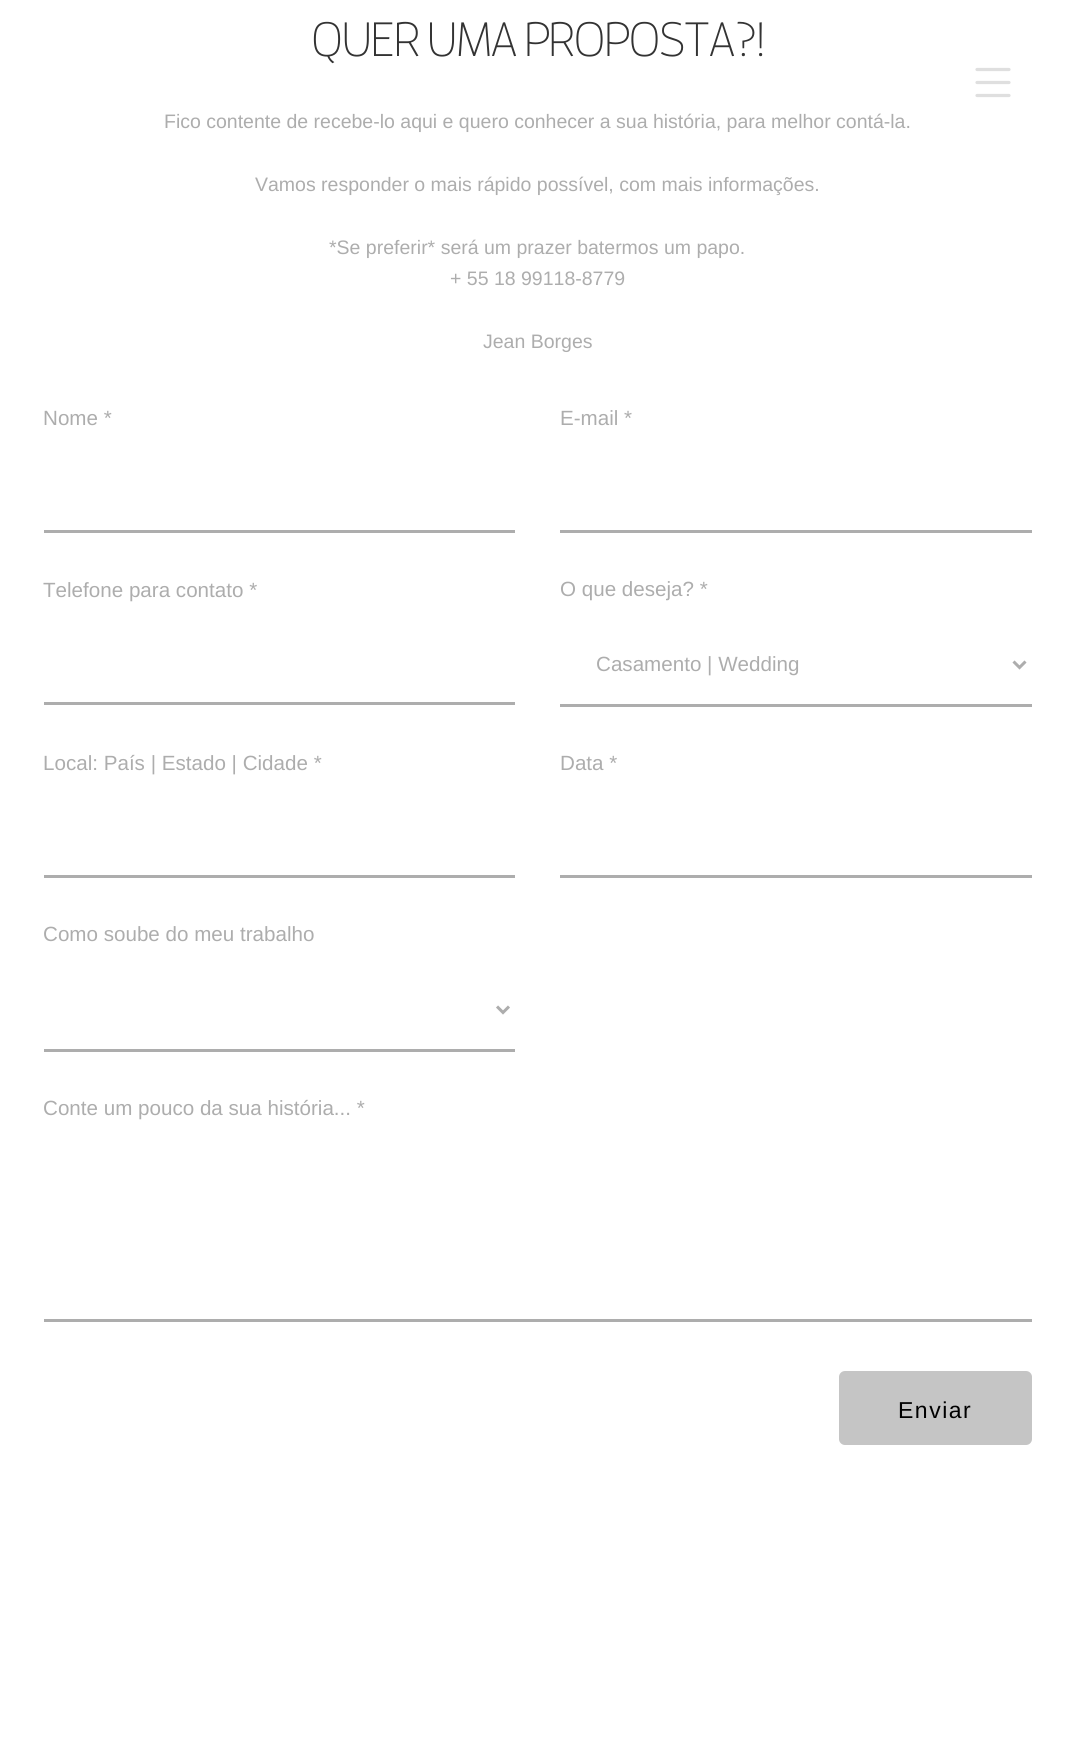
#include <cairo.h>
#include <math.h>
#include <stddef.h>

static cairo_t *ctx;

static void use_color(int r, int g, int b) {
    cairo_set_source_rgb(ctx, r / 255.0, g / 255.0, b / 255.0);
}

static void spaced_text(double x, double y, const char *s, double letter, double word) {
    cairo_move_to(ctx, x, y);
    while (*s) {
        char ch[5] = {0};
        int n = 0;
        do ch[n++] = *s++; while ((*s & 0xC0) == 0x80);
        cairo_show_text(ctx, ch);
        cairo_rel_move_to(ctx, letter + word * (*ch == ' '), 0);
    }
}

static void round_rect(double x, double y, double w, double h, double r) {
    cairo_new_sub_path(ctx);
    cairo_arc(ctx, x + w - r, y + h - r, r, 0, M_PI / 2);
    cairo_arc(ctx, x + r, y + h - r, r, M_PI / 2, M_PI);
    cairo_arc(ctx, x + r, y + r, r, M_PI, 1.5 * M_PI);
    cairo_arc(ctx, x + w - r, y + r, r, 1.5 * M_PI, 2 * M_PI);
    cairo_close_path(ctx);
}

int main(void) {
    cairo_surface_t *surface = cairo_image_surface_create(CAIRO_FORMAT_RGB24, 1075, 1752);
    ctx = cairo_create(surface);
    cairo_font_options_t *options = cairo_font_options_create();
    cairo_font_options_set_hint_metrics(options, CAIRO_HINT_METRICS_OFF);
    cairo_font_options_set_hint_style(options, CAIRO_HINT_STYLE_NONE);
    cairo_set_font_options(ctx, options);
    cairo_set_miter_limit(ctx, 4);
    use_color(255, 255, 255);
    cairo_paint(ctx);
    cairo_select_font_face(ctx, "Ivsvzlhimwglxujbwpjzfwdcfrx", CAIRO_FONT_SLANT_NORMAL, CAIRO_FONT_WEIGHT_NORMAL);
    cairo_set_font_size(ctx, 48);
    use_color(51, 51, 51);
    spaced_text(311, 56, "QUER UMA PROPOSTA?!", -1.5, 0);
    cairo_select_font_face(ctx, "Liberation Sans", CAIRO_FONT_SLANT_NORMAL, CAIRO_FONT_WEIGHT_NORMAL);
    cairo_set_font_size(ctx, 19.5);
    use_color(173, 173, 173);
    cairo_move_to(ctx, 164, 128);
    cairo_show_text(ctx, "Fico contente de recebe-lo aqui e quero conhecer a sua história, para melhor contá-la.");
    cairo_move_to(ctx, 255, 191);
    cairo_show_text(ctx, "Vamos responder o mais rápido possível, com mais informações.");
    cairo_move_to(ctx, 329, 254);
    cairo_show_text(ctx, "*Se preferir* será um prazer batermos um papo.");
    cairo_move_to(ctx, 450, 285);
    cairo_show_text(ctx, "+ 55 18 99118-8779");
    cairo_move_to(ctx, 483, 348);
    cairo_show_text(ctx, "Jean Borges");
    cairo_set_font_size(ctx, 20.6);
    cairo_move_to(ctx, 43, 425);
    cairo_show_text(ctx, "Nome *");
    cairo_rectangle(ctx, 44, 530, 471, 3);
    cairo_fill(ctx);
    cairo_move_to(ctx, 560, 425);
    cairo_show_text(ctx, "E-mail *");
    cairo_rectangle(ctx, 560, 530, 472, 3);
    cairo_fill(ctx);
    cairo_move_to(ctx, 43, 597);
    cairo_show_text(ctx, "Telefone para contato *");
    cairo_rectangle(ctx, 44, 702, 471, 3);
    cairo_fill(ctx);
    cairo_move_to(ctx, 560, 596);
    cairo_show_text(ctx, "O que deseja? *");
    cairo_rectangle(ctx, 560, 704, 472, 3);
    cairo_fill(ctx);
    cairo_new_path(ctx);
    cairo_move_to(ctx, 1013.5, 661.5);
    cairo_line_to(ctx, 1019.5, 667.5);
    cairo_line_to(ctx, 1025.5, 661.5);
    cairo_set_line_width(ctx, 3);
    cairo_stroke(ctx);
    cairo_move_to(ctx, 596, 671);
    cairo_show_text(ctx, "Casamento | Wedding");
    cairo_move_to(ctx, 43, 770);
    cairo_show_text(ctx, "Local: País | Estado | Cidade *");
    cairo_rectangle(ctx, 44, 875, 471, 3);
    cairo_fill(ctx);
    cairo_move_to(ctx, 560, 770);
    cairo_show_text(ctx, "Data *");
    cairo_rectangle(ctx, 560, 875, 472, 3);
    cairo_fill(ctx);
    cairo_move_to(ctx, 43, 941);
    cairo_show_text(ctx, "Como soube do meu trabalho");
    cairo_rectangle(ctx, 44, 1049, 471, 3);
    cairo_fill(ctx);
    cairo_new_path(ctx);
    cairo_move_to(ctx, 497, 1006.5);
    cairo_line_to(ctx, 503, 1012.5);
    cairo_line_to(ctx, 509, 1006.5);
    cairo_stroke(ctx);
    cairo_move_to(ctx, 43, 1115);
    cairo_show_text(ctx, "Conte um pouco da sua história... *");
    cairo_rectangle(ctx, 44, 1319, 988, 3);
    cairo_fill(ctx);
    cairo_set_source_rgba(ctx, 0.678, 0.678, 0.678, 0.7);
    round_rect(839, 1371, 193, 74, 6);
    cairo_fill(ctx);
    cairo_set_font_size(ctx, 23);
    use_color(0, 0, 0);
    spaced_text(898, 1418, "Enviar", 1.5, 0);
    cairo_new_path(ctx);
    cairo_move_to(ctx, 977, 69.5);
    cairo_line_to(ctx, 1009, 69.5);
    cairo_move_to(ctx, 977, 82.5);
    cairo_line_to(ctx, 1009, 82.5);
    cairo_move_to(ctx, 977, 95.5);
    cairo_line_to(ctx, 1009, 95.5);
    use_color(223, 223, 223);
    cairo_set_line_width(ctx, 3.2);
    cairo_set_line_cap(ctx, CAIRO_LINE_CAP_ROUND);
    cairo_stroke(ctx);
    cairo_surface_write_to_png(surface, "result.png");
    cairo_font_options_destroy(options);
    cairo_destroy(ctx);
    cairo_surface_destroy(surface);
    return 0;
}
